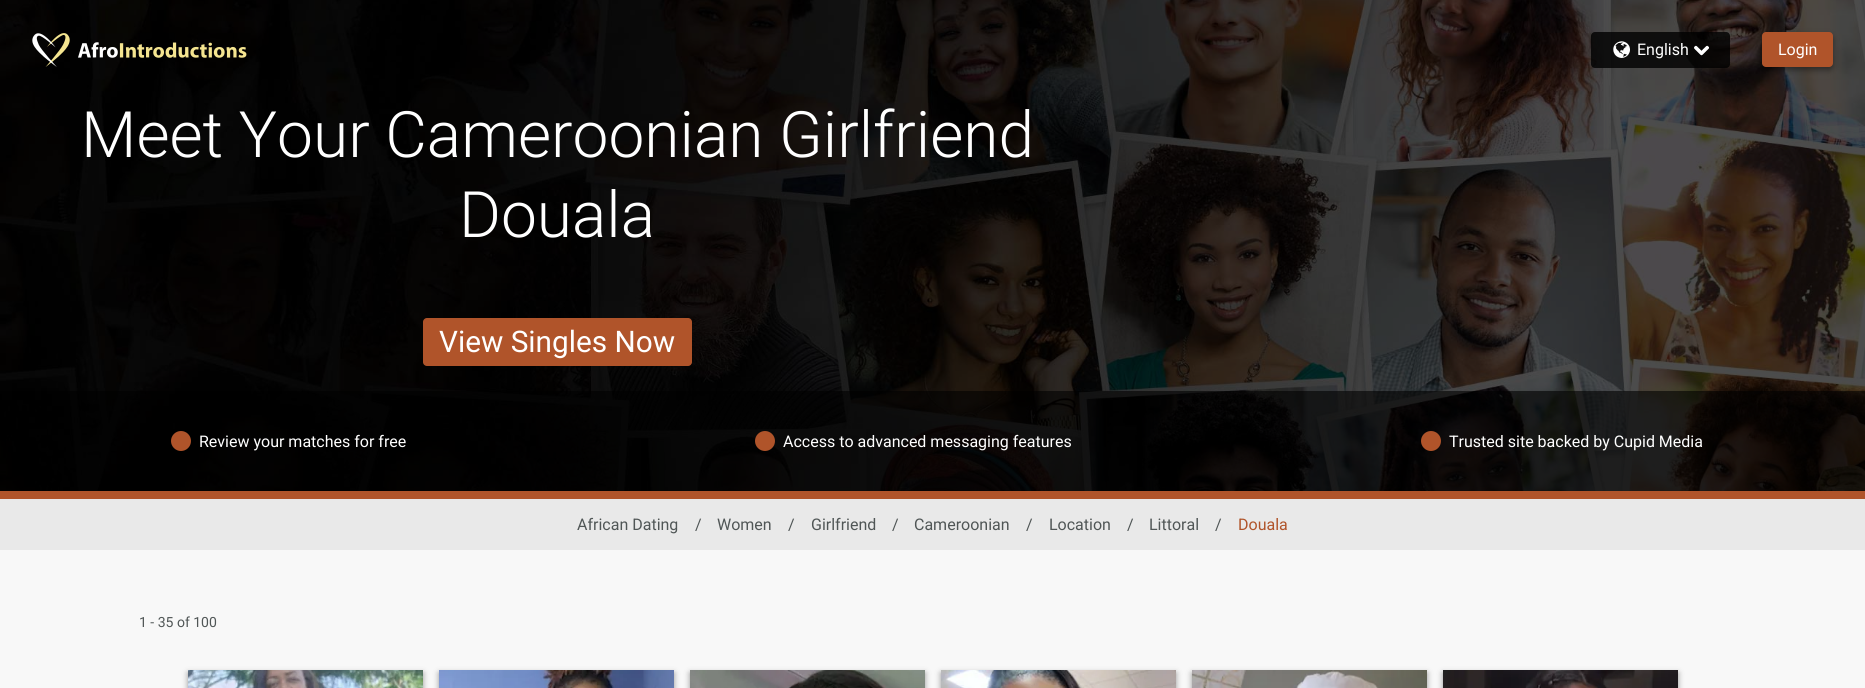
#include <cairo.h>
#include <math.h>
#include <stddef.h>

static cairo_t *ctx;

static void use_color(int r, int g, int b) {
    cairo_set_source_rgb(ctx, r / 255.0, g / 255.0, b / 255.0);
}

static void round_rect(double x, double y, double w, double h, double r) {
    cairo_new_sub_path(ctx);
    cairo_arc(ctx, x + w - r, y + h - r, r, 0, M_PI / 2);
    cairo_arc(ctx, x + r, y + h - r, r, M_PI / 2, M_PI);
    cairo_arc(ctx, x + r, y + r, r, M_PI, 1.5 * M_PI);
    cairo_arc(ctx, x + w - r, y + r, r, 1.5 * M_PI, 2 * M_PI);
    cairo_close_path(ctx);
}

static void shadow(double x, double y, double w, double h, double r, double blur, double alpha) {
    cairo_push_group_with_content(ctx, CAIRO_CONTENT_ALPHA);
    cairo_set_operator(ctx, CAIRO_OPERATOR_SOURCE);
    for (int i = 15; i >= -15 && fmin(w, h) + blur * i / 3 > 0; i -= 2) {
        double e = blur * i / 6;
        cairo_set_source_rgba(ctx, 0, 0, 0, alpha * erfc((i - 1) / 8.5) / 2);
        round_rect(x - e, y - e, w + 2 * e, h + 2 * e, fmax(0, fmin(r + e + blur * .6, fmin(w, h) / 2 + e)));
        cairo_fill(ctx);
    }
    cairo_pattern_t *soft = cairo_pop_group(ctx);
    cairo_mask(ctx, soft);
    cairo_pattern_destroy(soft);
}

static void picture(const char *path, double x, double y, double w, double h) {
    cairo_surface_t *image = cairo_image_surface_create_from_png(path);
    cairo_save(ctx);
    cairo_set_source_surface(ctx, image, x, y);
    cairo_rectangle(ctx, x, y, w, h);
    cairo_fill(ctx);
    cairo_restore(ctx);
    cairo_surface_destroy(image);
}

int main(void) {
    cairo_surface_t *surface = cairo_image_surface_create(CAIRO_FORMAT_RGB24, 1865, 688);
    ctx = cairo_create(surface);
    cairo_font_options_t *options = cairo_font_options_create();
    cairo_font_options_set_hint_metrics(options, CAIRO_HINT_METRICS_OFF);
    cairo_font_options_set_hint_style(options, CAIRO_HINT_STYLE_NONE);
    cairo_set_font_options(ctx, options);
    cairo_set_miter_limit(ctx, 4);
    use_color(248, 248, 248);
    cairo_paint(ctx);
    picture("img5.png", 0, 0, 1865, 491);
    picture("img1.png", 32, 33, 38, 34);
    picture("img2.png", 78, 42, 169, 16);
    cairo_set_source_rgba(ctx, 0, 0, 0, 0.8);
    round_rect(1591, 32, 139, 36, 4);
    cairo_fill(ctx);
    picture("img3.png", 1613, 41, 17, 17);
    cairo_select_font_face(ctx, "Roboto", CAIRO_FONT_SLANT_NORMAL, CAIRO_FONT_WEIGHT_NORMAL);
    cairo_set_font_size(ctx, 16);
    use_color(255, 255, 255);
    cairo_move_to(ctx, 1637, 55);
    cairo_show_text(ctx, "English");
    picture("img4.png", 1694, 45, 15, 11);
    use_color(0, 0, 0);
    shadow(1762, 35, 71, 35, 4, 3, 0.4);
    use_color(176, 84, 42);
    round_rect(1762, 32, 71, 35, 4);
    cairo_fill(ctx);
    use_color(255, 255, 255);
    cairo_move_to(ctx, 1778, 55);
    cairo_show_text(ctx, "Login");
    cairo_select_font_face(ctx, "Roboto Light", CAIRO_FONT_SLANT_NORMAL, CAIRO_FONT_WEIGHT_NORMAL);
    cairo_set_font_size(ctx, 64);
    cairo_move_to(ctx, 81, 157);
    cairo_show_text(ctx, "Meet Your Cameroonian Girlfriend");
    cairo_move_to(ctx, 459, 237);
    cairo_show_text(ctx, "Douala");
    use_color(176, 84, 42);
    round_rect(423, 318, 269, 48, 4);
    cairo_fill(ctx);
    cairo_select_font_face(ctx, "Roboto", CAIRO_FONT_SLANT_NORMAL, CAIRO_FONT_WEIGHT_NORMAL);
    cairo_set_font_size(ctx, 29.75);
    use_color(255, 255, 255);
    cairo_move_to(ctx, 439, 352);
    cairo_show_text(ctx, "View Singles Now");
    cairo_set_source_rgba(ctx, 0, 0, 0, 0.6);
    cairo_rectangle(ctx, 0, 391, 1865, 100);
    cairo_fill(ctx);
    use_color(176, 84, 42);
    cairo_arc(ctx, 181, 441, 10, 0, 2 * M_PI);
    cairo_fill(ctx);
    cairo_set_font_size(ctx, 16);
    use_color(255, 255, 255);
    cairo_move_to(ctx, 199, 447);
    cairo_show_text(ctx, "Review your matches for free");
    use_color(176, 84, 42);
    cairo_new_path(ctx);
    cairo_arc(ctx, 765, 441, 10, 0, 2 * M_PI);
    cairo_fill(ctx);
    use_color(255, 255, 255);
    cairo_move_to(ctx, 783, 447);
    cairo_show_text(ctx, "Access to advanced messaging features");
    use_color(176, 84, 42);
    cairo_new_path(ctx);
    cairo_arc(ctx, 1431, 441, 10, 0, 2 * M_PI);
    cairo_fill(ctx);
    use_color(255, 255, 255);
    cairo_move_to(ctx, 1449, 447);
    cairo_show_text(ctx, "Trusted site backed by Cupid Media");
    use_color(176, 84, 42);
    cairo_rectangle(ctx, 0, 491, 1865, 8);
    cairo_fill(ctx);
    use_color(233, 233, 233);
    cairo_rectangle(ctx, 0, 499, 1865, 51);
    cairo_fill(ctx);
    use_color(80, 86, 86);
    cairo_move_to(ctx, 577, 530);
    cairo_show_text(ctx, "African Dating");
    cairo_move_to(ctx, 695, 530);
    cairo_show_text(ctx, "/");
    cairo_move_to(ctx, 717, 530);
    cairo_show_text(ctx, "Women");
    cairo_move_to(ctx, 788, 530);
    cairo_show_text(ctx, "/");
    cairo_move_to(ctx, 811, 530);
    cairo_show_text(ctx, "Girlfriend");
    cairo_move_to(ctx, 892, 530);
    cairo_show_text(ctx, "/");
    cairo_move_to(ctx, 914, 530);
    cairo_show_text(ctx, "Cameroonian");
    cairo_move_to(ctx, 1026, 530);
    cairo_show_text(ctx, "/");
    cairo_move_to(ctx, 1049, 530);
    cairo_show_text(ctx, "Location");
    cairo_move_to(ctx, 1127, 530);
    cairo_show_text(ctx, "/");
    cairo_move_to(ctx, 1149, 530);
    cairo_show_text(ctx, "Littoral");
    cairo_move_to(ctx, 1215, 530);
    cairo_show_text(ctx, "/");
    use_color(176, 84, 42);
    cairo_move_to(ctx, 1238, 530);
    cairo_show_text(ctx, "Douala");
    cairo_set_font_size(ctx, 14);
    use_color(80, 86, 86);
    cairo_move_to(ctx, 139, 627);
    cairo_show_text(ctx, "1 - 35 of 100");
    use_color(0, 0, 0);
    shadow(188, 673, 235, 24, 0, 3, 0.4);
    picture("img6.png", 188, 670, 235, 18);
    shadow(439, 673, 235, 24, 0, 3, 0.4);
    picture("img7.png", 439, 670, 235, 18);
    shadow(690, 673, 235, 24, 0, 3, 0.4);
    picture("img8.png", 690, 670, 235, 18);
    shadow(941, 673, 235, 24, 0, 3, 0.4);
    picture("img9.png", 941, 670, 235, 18);
    shadow(1192, 673, 235, 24, 0, 3, 0.4);
    picture("img10.png", 1192, 670, 235, 18);
    shadow(1443, 673, 235, 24, 0, 3, 0.4);
    picture("img11.png", 1443, 670, 235, 18);
    cairo_surface_write_to_png(surface, "result.png");
    cairo_font_options_destroy(options);
    cairo_destroy(ctx);
    cairo_surface_destroy(surface);
    return 0;
}
